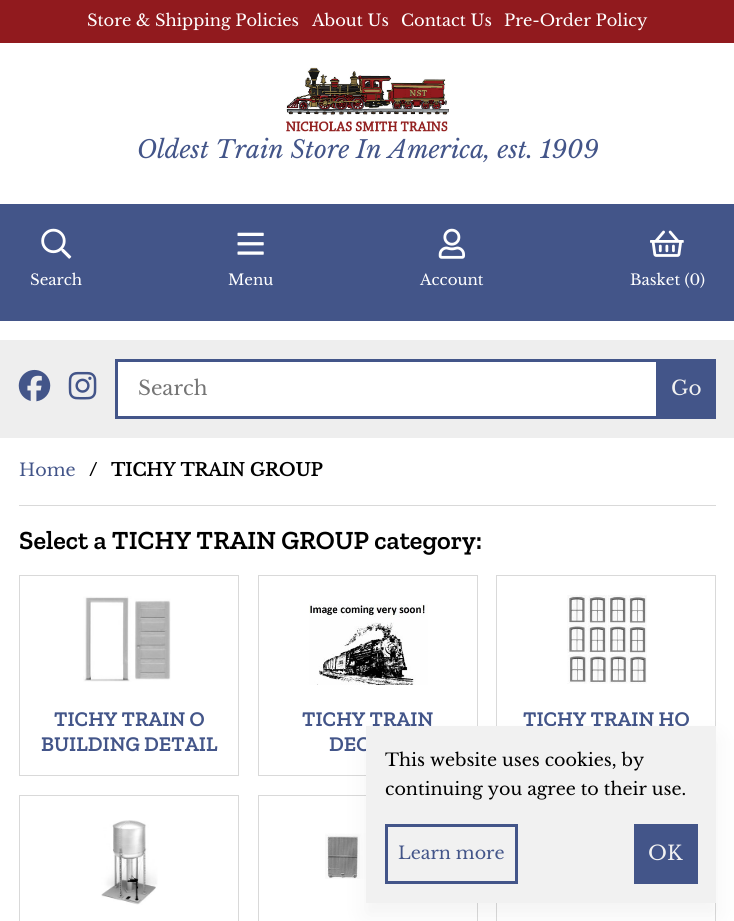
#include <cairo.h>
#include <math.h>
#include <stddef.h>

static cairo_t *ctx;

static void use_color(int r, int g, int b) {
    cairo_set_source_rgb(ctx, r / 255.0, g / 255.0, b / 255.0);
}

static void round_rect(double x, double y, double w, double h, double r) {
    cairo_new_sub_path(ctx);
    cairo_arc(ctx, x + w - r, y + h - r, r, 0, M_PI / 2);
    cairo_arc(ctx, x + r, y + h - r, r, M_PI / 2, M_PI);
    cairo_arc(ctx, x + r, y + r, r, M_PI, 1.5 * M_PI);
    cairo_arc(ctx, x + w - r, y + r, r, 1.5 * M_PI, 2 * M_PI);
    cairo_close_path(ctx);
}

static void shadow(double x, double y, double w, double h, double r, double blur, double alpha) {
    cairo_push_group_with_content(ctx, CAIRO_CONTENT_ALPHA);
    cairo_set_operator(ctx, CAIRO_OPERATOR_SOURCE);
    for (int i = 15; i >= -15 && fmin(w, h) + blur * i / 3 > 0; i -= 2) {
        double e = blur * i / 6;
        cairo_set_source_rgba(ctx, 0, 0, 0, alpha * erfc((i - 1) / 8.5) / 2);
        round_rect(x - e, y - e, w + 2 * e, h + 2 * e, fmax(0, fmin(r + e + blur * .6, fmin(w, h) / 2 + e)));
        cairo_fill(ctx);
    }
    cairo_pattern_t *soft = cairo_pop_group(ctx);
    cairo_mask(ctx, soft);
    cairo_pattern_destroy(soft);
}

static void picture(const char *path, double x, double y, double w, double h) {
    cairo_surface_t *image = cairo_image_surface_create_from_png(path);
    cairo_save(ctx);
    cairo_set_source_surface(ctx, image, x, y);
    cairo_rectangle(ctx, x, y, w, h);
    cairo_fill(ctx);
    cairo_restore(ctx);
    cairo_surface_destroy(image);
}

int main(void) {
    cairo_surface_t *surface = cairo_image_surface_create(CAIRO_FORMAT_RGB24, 734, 921);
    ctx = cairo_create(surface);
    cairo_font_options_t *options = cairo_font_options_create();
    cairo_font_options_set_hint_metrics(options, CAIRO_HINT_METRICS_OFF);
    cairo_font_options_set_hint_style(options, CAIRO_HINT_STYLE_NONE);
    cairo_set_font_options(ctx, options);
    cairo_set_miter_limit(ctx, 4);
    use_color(255, 255, 255);
    cairo_paint(ctx);
    use_color(145, 26, 30);
    cairo_rectangle(ctx, 0, 0, 734, 43);
    cairo_fill(ctx);
    cairo_select_font_face(ctx, "Libre Baskerville", CAIRO_FONT_SLANT_NORMAL, CAIRO_FONT_WEIGHT_NORMAL);
    cairo_set_font_size(ctx, 16.25);
    use_color(255, 255, 255);
    cairo_move_to(ctx, 87, 26);
    cairo_show_text(ctx, "Store & Shipping Policies");
    cairo_move_to(ctx, 312, 26);
    cairo_show_text(ctx, "About Us");
    cairo_move_to(ctx, 401, 26);
    cairo_show_text(ctx, "Contact Us");
    cairo_move_to(ctx, 504, 26);
    cairo_show_text(ctx, "Pre-Order Policy");
    picture("img1.png", 286, 67, 163, 65);
    cairo_select_font_face(ctx, "Libre Baskerville", CAIRO_FONT_SLANT_ITALIC, CAIRO_FONT_WEIGHT_NORMAL);
    cairo_set_font_size(ctx, 24.5);
    use_color(67, 85, 137);
    cairo_move_to(ctx, 137, 158);
    cairo_show_text(ctx, "Oldest Train Store In America, est. 1909");
    cairo_rectangle(ctx, 0, 204, 734, 117);
    cairo_fill(ctx);
    picture("img2.png", 41, 228, 31, 31);
    cairo_select_font_face(ctx, "Libre Baskerville", CAIRO_FONT_SLANT_NORMAL, CAIRO_FONT_WEIGHT_NORMAL);
    cairo_set_font_size(ctx, 15);
    use_color(255, 255, 255);
    cairo_move_to(ctx, 30, 285);
    cairo_show_text(ctx, "Search");
    picture("img3.png", 237, 232, 27, 23);
    cairo_move_to(ctx, 228, 285);
    cairo_show_text(ctx, "Menu");
    picture("img4.png", 438, 228, 27, 31);
    cairo_move_to(ctx, 420, 285);
    cairo_show_text(ctx, "Account");
    picture("img5.png", 650, 230, 34, 27);
    cairo_move_to(ctx, 630, 285);
    cairo_show_text(ctx, "Basket (0)");
    use_color(238, 238, 238);
    cairo_rectangle(ctx, 0, 340, 734, 98);
    cairo_fill(ctx);
    picture("img6.png", 18, 369, 33, 33);
    picture("img7.png", 68, 371, 29, 29);
    use_color(255, 255, 255);
    cairo_rectangle(ctx, 118, 362, 538, 54);
    cairo_fill(ctx);
    use_color(67, 85, 137);
    cairo_rectangle(ctx, 115, 359, 541, 3);
    cairo_fill(ctx);
    cairo_rectangle(ctx, 115, 416, 541, 3);
    cairo_fill(ctx);
    cairo_rectangle(ctx, 115, 359, 3, 60);
    cairo_fill(ctx);
    cairo_set_font_size(ctx, 20);
    use_color(117, 117, 117);
    cairo_move_to(ctx, 138, 395);
    cairo_show_text(ctx, "Search");
    use_color(67, 85, 137);
    cairo_rectangle(ctx, 656, 359, 60, 60);
    cairo_fill(ctx);
    use_color(241, 241, 241);
    cairo_move_to(ctx, 671, 395);
    cairo_show_text(ctx, "Go");
    use_color(217, 217, 217);
    cairo_rectangle(ctx, 19, 505, 697, 1);
    cairo_fill(ctx);
    cairo_set_font_size(ctx, 17.5);
    use_color(67, 85, 137);
    cairo_move_to(ctx, 19, 476);
    cairo_show_text(ctx, "Home");
    cairo_select_font_face(ctx, "Libre Baskerville", CAIRO_FONT_SLANT_NORMAL, CAIRO_FONT_WEIGHT_BOLD);
    use_color(0, 0, 0);
    cairo_move_to(ctx, 89, 476);
    cairo_show_text(ctx, "/");
    cairo_move_to(ctx, 111, 476);
    cairo_show_text(ctx, "TICHY TRAIN GROUP");
    cairo_select_font_face(ctx, "Zilla Slab SemiBold", CAIRO_FONT_SLANT_NORMAL, CAIRO_FONT_WEIGHT_NORMAL);
    cairo_set_font_size(ctx, 26.25);
    cairo_move_to(ctx, 19, 549);
    cairo_show_text(ctx, "Select a TICHY TRAIN GROUP category:");
    cairo_rectangle(ctx, 19.5, 575.5, 219, 200);
    use_color(217, 217, 217);
    cairo_set_line_width(ctx, 1);
    cairo_stroke(ctx);
    picture("img8.png", 83, 596, 88, 86);
    cairo_set_font_size(ctx, 21);
    use_color(67, 85, 137);
    cairo_move_to(ctx, 54, 726);
    cairo_show_text(ctx, "TICHY TRAIN O");
    cairo_move_to(ctx, 41, 751);
    cairo_show_text(ctx, "BUILDING DETAIL");
    cairo_rectangle(ctx, 258.5, 575.5, 219, 200);
    use_color(217, 217, 217);
    cairo_stroke(ctx);
    picture("img9.png", 309, 604, 119, 81);
    use_color(67, 85, 137);
    cairo_move_to(ctx, 302, 726);
    cairo_show_text(ctx, "TICHY TRAIN");
    cairo_move_to(ctx, 329, 751);
    cairo_show_text(ctx, "DEC");
    cairo_rectangle(ctx, 496.5, 575.5, 219, 200);
    use_color(217, 217, 217);
    cairo_stroke(ctx);
    picture("img10.png", 567, 595, 80, 89);
    use_color(67, 85, 137);
    cairo_move_to(ctx, 523, 726);
    cairo_show_text(ctx, "TICHY TRAIN HO");
    cairo_rectangle(ctx, 19.5, 795.5, 219, 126);
    use_color(217, 217, 217);
    cairo_stroke(ctx);
    picture("img11.png", 101, 820, 57, 85);
    cairo_rectangle(ctx, 258.5, 795.5, 219, 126);
    cairo_stroke(ctx);
    picture("img12.png", 325, 833, 41, 46);
    cairo_rectangle(ctx, 496.5, 795.5, 219, 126);
    cairo_stroke(ctx);
    use_color(0, 0, 0);
    shadow(366, 739, 350, 176, 0, 12.5, 0.05);
    use_color(241, 241, 241);
    cairo_rectangle(ctx, 366, 726, 350, 177);
    cairo_fill(ctx);
    cairo_select_font_face(ctx, "Libre Baskerville", CAIRO_FONT_SLANT_NORMAL, CAIRO_FONT_WEIGHT_NORMAL);
    cairo_set_font_size(ctx, 17.5);
    use_color(0, 0, 0);
    cairo_move_to(ctx, 385, 766);
    cairo_show_text(ctx, "This website uses cookies, by");
    cairo_move_to(ctx, 385, 795);
    cairo_show_text(ctx, "continuing you agree to their use.");
    cairo_rectangle(ctx, 386.5, 825.5, 130, 57);
    use_color(67, 85, 137);
    cairo_set_line_width(ctx, 3);
    cairo_stroke(ctx);
    cairo_move_to(ctx, 398, 859);
    cairo_show_text(ctx, "Learn more");
    cairo_rectangle(ctx, 634, 824, 64, 60);
    cairo_fill(ctx);
    cairo_set_font_size(ctx, 20);
    use_color(241, 241, 241);
    cairo_move_to(ctx, 648, 860);
    cairo_show_text(ctx, "OK");
    cairo_surface_write_to_png(surface, "result.png");
    cairo_font_options_destroy(options);
    cairo_destroy(ctx);
    cairo_surface_destroy(surface);
    return 0;
}
